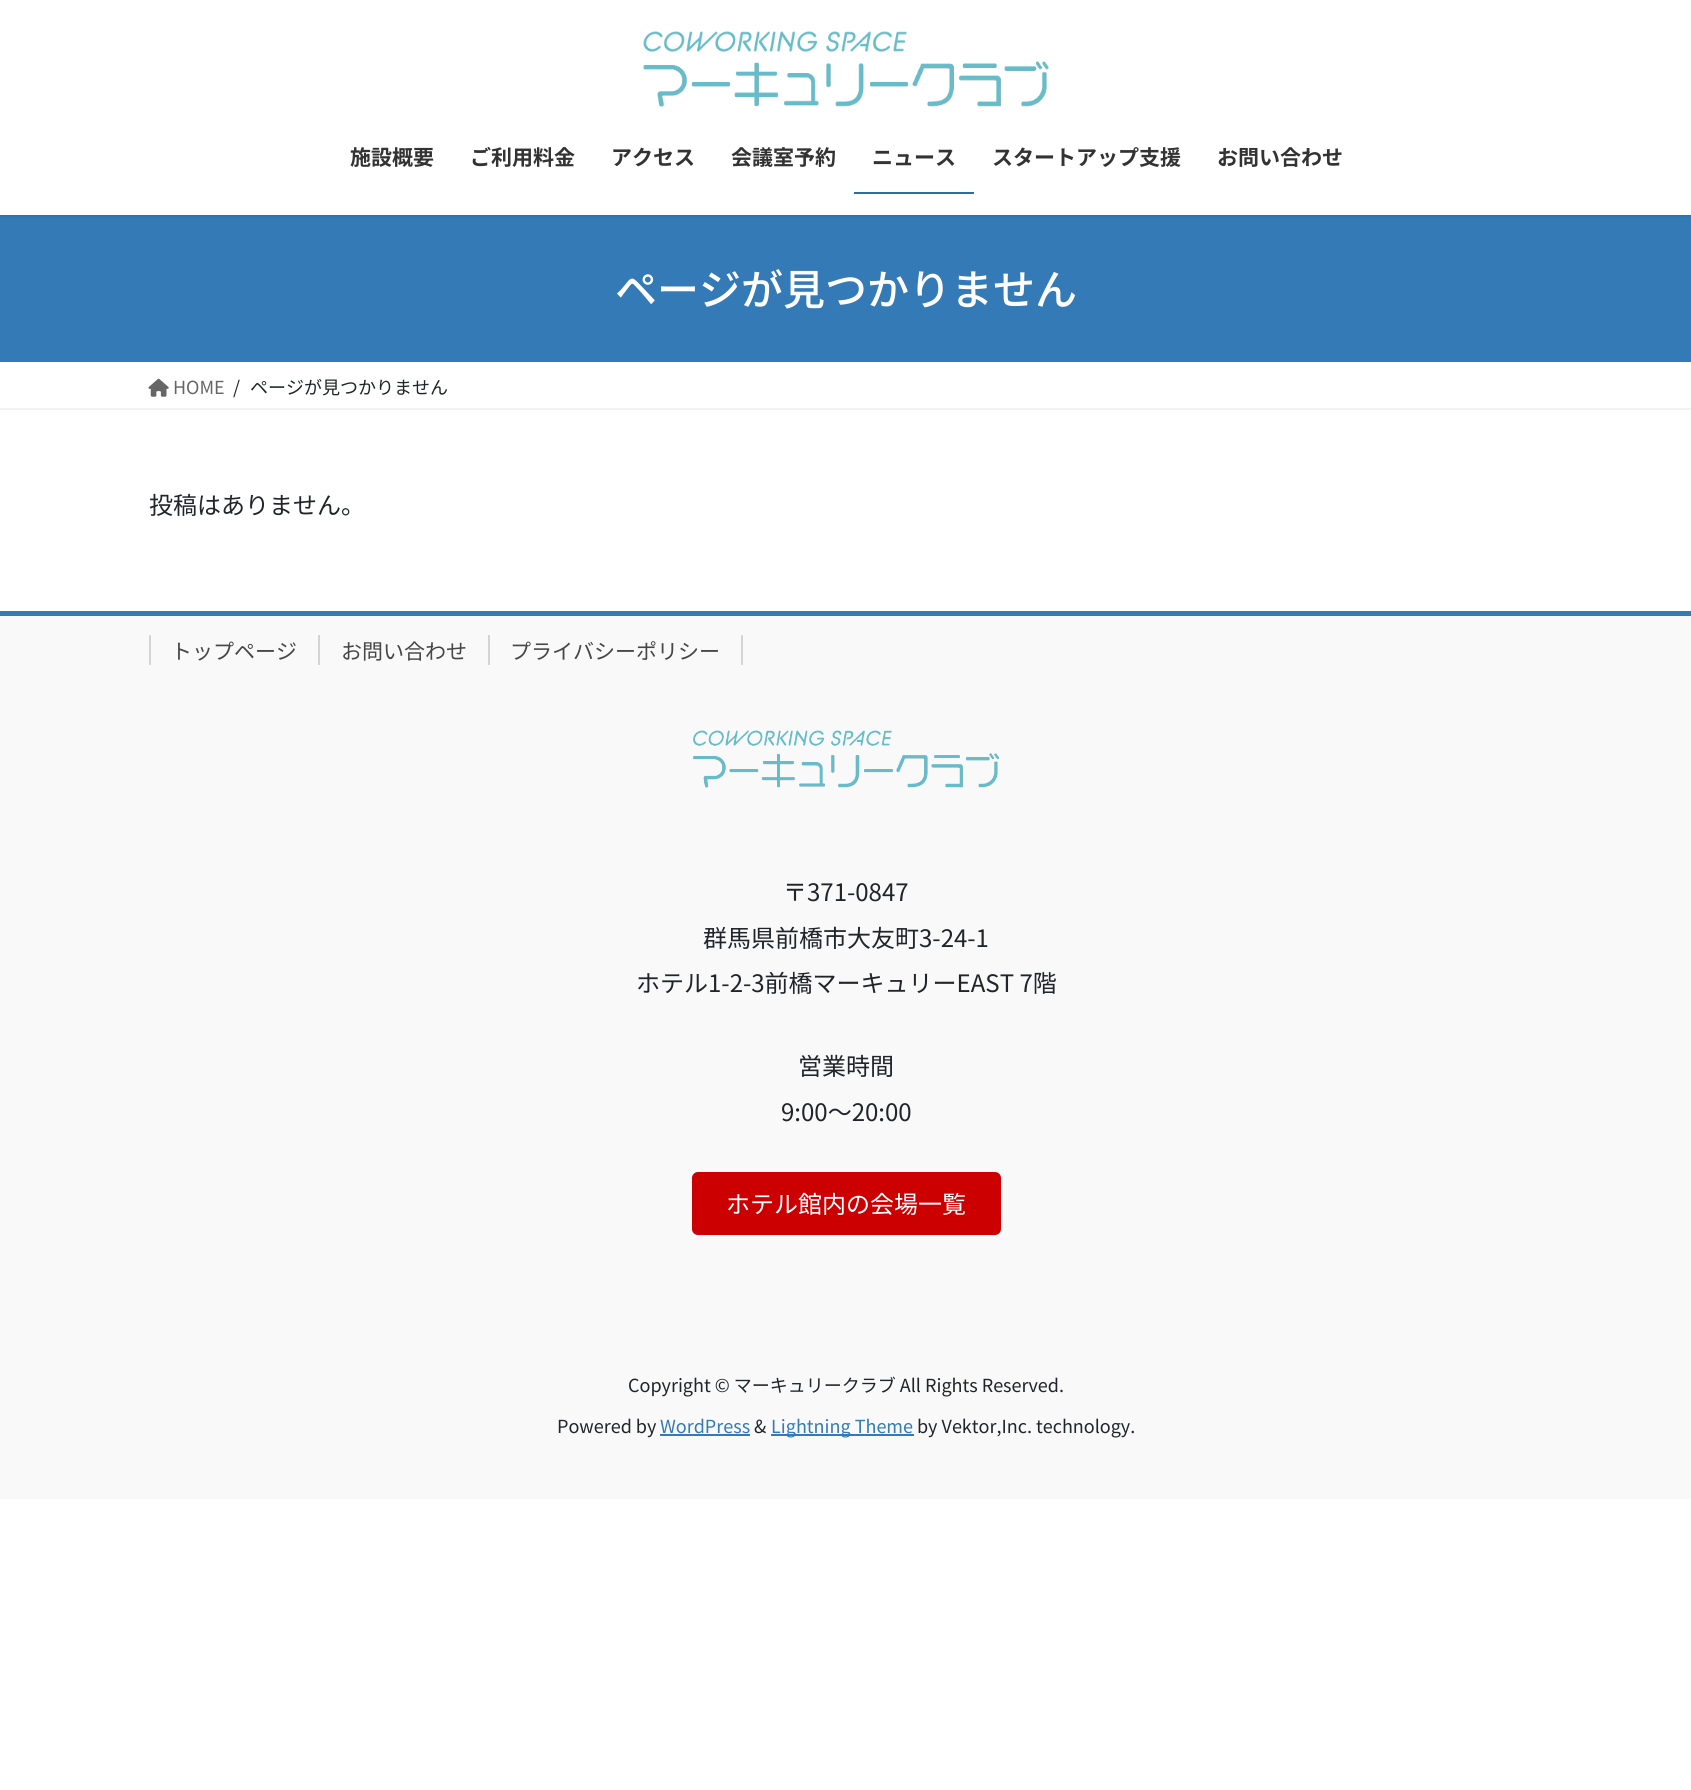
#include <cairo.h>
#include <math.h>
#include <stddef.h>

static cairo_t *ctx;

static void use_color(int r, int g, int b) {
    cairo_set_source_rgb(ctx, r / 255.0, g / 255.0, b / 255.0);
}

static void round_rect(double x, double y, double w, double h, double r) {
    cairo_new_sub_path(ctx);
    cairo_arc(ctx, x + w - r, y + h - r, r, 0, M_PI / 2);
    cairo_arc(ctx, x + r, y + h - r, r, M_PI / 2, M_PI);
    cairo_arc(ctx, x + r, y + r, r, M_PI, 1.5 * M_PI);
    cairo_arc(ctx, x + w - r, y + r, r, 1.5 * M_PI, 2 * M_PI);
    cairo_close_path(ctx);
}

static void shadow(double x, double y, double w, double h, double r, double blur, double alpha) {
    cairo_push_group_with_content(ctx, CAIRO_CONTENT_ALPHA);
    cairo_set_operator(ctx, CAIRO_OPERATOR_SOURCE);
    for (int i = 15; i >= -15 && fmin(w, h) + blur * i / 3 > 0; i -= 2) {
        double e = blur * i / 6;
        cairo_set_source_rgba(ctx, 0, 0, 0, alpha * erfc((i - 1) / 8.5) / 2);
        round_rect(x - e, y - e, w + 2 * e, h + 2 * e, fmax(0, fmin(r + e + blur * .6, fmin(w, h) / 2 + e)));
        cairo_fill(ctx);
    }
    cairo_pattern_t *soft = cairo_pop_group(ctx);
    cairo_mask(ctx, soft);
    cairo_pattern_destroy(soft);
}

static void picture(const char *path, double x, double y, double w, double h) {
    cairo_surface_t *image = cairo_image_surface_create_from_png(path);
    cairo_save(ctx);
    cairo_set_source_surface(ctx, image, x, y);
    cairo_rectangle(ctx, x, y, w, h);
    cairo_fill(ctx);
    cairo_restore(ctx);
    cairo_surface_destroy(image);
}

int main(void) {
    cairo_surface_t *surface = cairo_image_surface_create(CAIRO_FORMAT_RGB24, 1691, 1790);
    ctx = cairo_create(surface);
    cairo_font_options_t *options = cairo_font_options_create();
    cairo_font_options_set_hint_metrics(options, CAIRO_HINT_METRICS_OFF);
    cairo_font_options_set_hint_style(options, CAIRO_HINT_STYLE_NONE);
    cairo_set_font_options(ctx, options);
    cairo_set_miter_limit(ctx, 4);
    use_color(255, 255, 255);
    cairo_paint(ctx);
    use_color(51, 122, 183);
    cairo_rectangle(ctx, 0, 215, 1691, 147);
    cairo_fill(ctx);
    use_color(0, 0, 0);
    shadow(0, 2, 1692, 214, 0, 2, 0.1);
    use_color(255, 255, 255);
    cairo_rectangle(ctx, 0, 0, 1691, 215);
    cairo_fill(ctx);
    picture("img1.png", 643, 31, 406, 76);
    cairo_select_font_face(ctx, "Noto Sans JP", CAIRO_FONT_SLANT_NORMAL, CAIRO_FONT_WEIGHT_BOLD);
    cairo_set_font_size(ctx, 21);
    use_color(51, 51, 51);
    cairo_move_to(ctx, 350, 165);
    cairo_show_text(ctx, "施設概要");
    cairo_move_to(ctx, 470, 165);
    cairo_show_text(ctx, "ご利用料金");
    cairo_move_to(ctx, 611, 165);
    cairo_show_text(ctx, "アクセス");
    cairo_move_to(ctx, 731, 165);
    cairo_show_text(ctx, "会議室予約");
    cairo_move_to(ctx, 872, 165);
    cairo_show_text(ctx, "ニュース");
    use_color(46, 109, 164);
    cairo_rectangle(ctx, 854, 192, 120, 2);
    cairo_fill(ctx);
    use_color(51, 51, 51);
    cairo_move_to(ctx, 992, 165);
    cairo_show_text(ctx, "スタートアップ支援");
    cairo_move_to(ctx, 1217, 165);
    cairo_show_text(ctx, "お問い合わせ");
    cairo_select_font_face(ctx, "Noto Sans JP Medium", CAIRO_FONT_SLANT_NORMAL, CAIRO_FONT_WEIGHT_NORMAL);
    cairo_set_font_size(ctx, 42);
    use_color(255, 255, 255);
    cairo_move_to(ctx, 615, 305);
    cairo_show_text(ctx, "ページが見つかりません");
    use_color(242, 242, 242);
    cairo_rectangle(ctx, 0, 408, 1691, 2);
    cairo_fill(ctx);
    picture("img2.png", 148, 378, 21, 19);
    cairo_select_font_face(ctx, "Noto Sans JP", CAIRO_FONT_SLANT_NORMAL, CAIRO_FONT_WEIGHT_NORMAL);
    cairo_set_font_size(ctx, 18);
    use_color(102, 102, 102);
    cairo_move_to(ctx, 173, 394);
    cairo_show_text(ctx, "HOME");
    use_color(33, 37, 41);
    cairo_move_to(ctx, 233, 394);
    cairo_show_text(ctx, "/");
    cairo_move_to(ctx, 250, 394);
    cairo_show_text(ctx, "ページが見つかりません");
    cairo_set_font_size(ctx, 24);
    cairo_move_to(ctx, 149, 514);
    cairo_show_text(ctx, "投稿はありません。");
    use_color(249, 249, 249);
    cairo_rectangle(ctx, 0, 616, 1691, 883);
    cairo_fill(ctx);
    use_color(51, 122, 183);
    cairo_rectangle(ctx, 0, 611, 1691, 5);
    cairo_fill(ctx);
    cairo_set_font_size(ctx, 21);
    use_color(70, 70, 70);
    cairo_move_to(ctx, 171, 659);
    cairo_show_text(ctx, "トップページ");
    use_color(212, 212, 212);
    cairo_rectangle(ctx, 149, 635, 2, 30);
    cairo_fill(ctx);
    use_color(70, 70, 70);
    cairo_move_to(ctx, 341, 659);
    cairo_show_text(ctx, "お問い合わせ");
    use_color(212, 212, 212);
    cairo_rectangle(ctx, 318, 635, 2, 30);
    cairo_fill(ctx);
    use_color(70, 70, 70);
    cairo_move_to(ctx, 510, 659);
    cairo_show_text(ctx, "プライバシーポリシー");
    use_color(212, 212, 212);
    cairo_rectangle(ctx, 741, 635, 2, 30);
    cairo_fill(ctx);
    cairo_rectangle(ctx, 488, 635, 2, 30);
    cairo_fill(ctx);
    picture("img3.png", 693, 730, 306, 58);
    cairo_set_font_size(ctx, 24);
    use_color(33, 37, 41);
    cairo_move_to(ctx, 783, 901);
    cairo_show_text(ctx, "〒371-0847");
    cairo_move_to(ctx, 703, 947);
    cairo_show_text(ctx, "群馬県前橋市大友町3-24-1");
    cairo_move_to(ctx, 636, 992);
    cairo_show_text(ctx, "ホテル1-2-3前橋マーキュリーEAST 7階");
    cairo_move_to(ctx, 798, 1075);
    cairo_show_text(ctx, "営業時間");
    cairo_move_to(ctx, 781, 1121);
    cairo_show_text(ctx, "9:00〜20:00");
    use_color(204, 0, 0);
    round_rect(692, 1172, 309, 63, 6);
    cairo_fill(ctx);
    use_color(255, 255, 255);
    cairo_move_to(ctx, 726, 1213);
    cairo_show_text(ctx, "ホテル館内の会場一覧");
    cairo_set_font_size(ctx, 18);
    use_color(33, 37, 41);
    cairo_move_to(ctx, 628, 1392);
    cairo_show_text(ctx, "Copyright © マーキュリークラブ All Rights Reserved.");
    cairo_move_to(ctx, 557, 1433);
    cairo_show_text(ctx, "Powered by");
    use_color(51, 122, 183);
    cairo_move_to(ctx, 660, 1433);
    cairo_show_text(ctx, "WordPress");
    cairo_rectangle(ctx, 660, 1434, 90, 2);
    cairo_fill(ctx);
    use_color(33, 37, 41);
    cairo_move_to(ctx, 754, 1433);
    cairo_show_text(ctx, "&");
    use_color(51, 122, 183);
    cairo_rectangle(ctx, 771, 1434, 143, 2);
    cairo_fill(ctx);
    cairo_move_to(ctx, 771, 1433);
    cairo_show_text(ctx, "Lightning Theme");
    use_color(33, 37, 41);
    cairo_move_to(ctx, 917, 1433);
    cairo_show_text(ctx, "by Vektor,Inc. technology.");
    cairo_surface_write_to_png(surface, "result.png");
    cairo_font_options_destroy(options);
    cairo_destroy(ctx);
    cairo_surface_destroy(surface);
    return 0;
}
